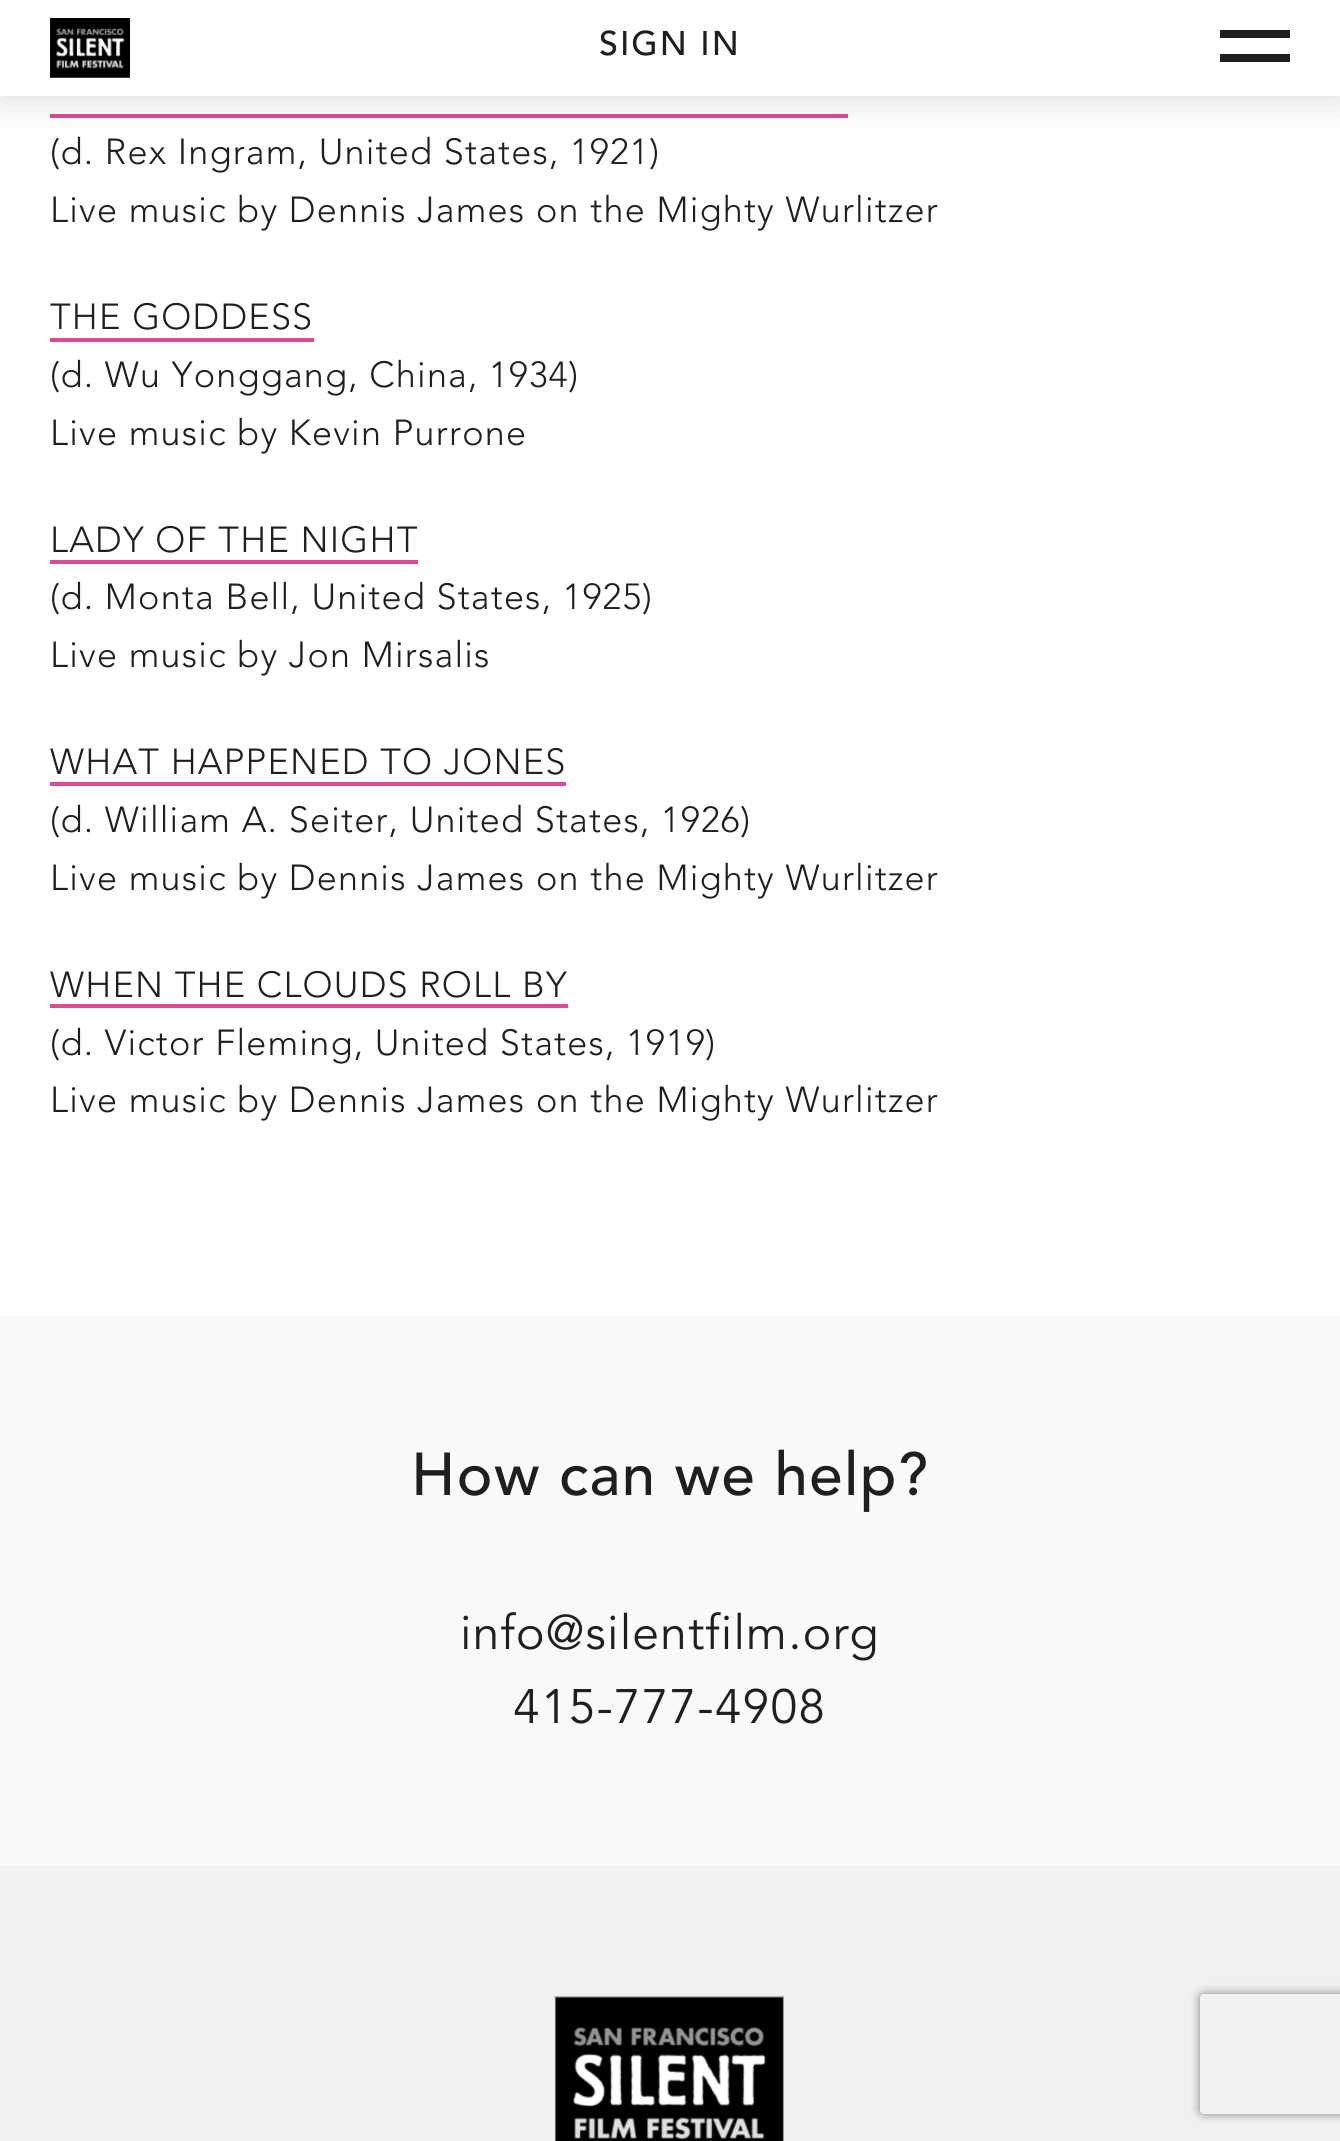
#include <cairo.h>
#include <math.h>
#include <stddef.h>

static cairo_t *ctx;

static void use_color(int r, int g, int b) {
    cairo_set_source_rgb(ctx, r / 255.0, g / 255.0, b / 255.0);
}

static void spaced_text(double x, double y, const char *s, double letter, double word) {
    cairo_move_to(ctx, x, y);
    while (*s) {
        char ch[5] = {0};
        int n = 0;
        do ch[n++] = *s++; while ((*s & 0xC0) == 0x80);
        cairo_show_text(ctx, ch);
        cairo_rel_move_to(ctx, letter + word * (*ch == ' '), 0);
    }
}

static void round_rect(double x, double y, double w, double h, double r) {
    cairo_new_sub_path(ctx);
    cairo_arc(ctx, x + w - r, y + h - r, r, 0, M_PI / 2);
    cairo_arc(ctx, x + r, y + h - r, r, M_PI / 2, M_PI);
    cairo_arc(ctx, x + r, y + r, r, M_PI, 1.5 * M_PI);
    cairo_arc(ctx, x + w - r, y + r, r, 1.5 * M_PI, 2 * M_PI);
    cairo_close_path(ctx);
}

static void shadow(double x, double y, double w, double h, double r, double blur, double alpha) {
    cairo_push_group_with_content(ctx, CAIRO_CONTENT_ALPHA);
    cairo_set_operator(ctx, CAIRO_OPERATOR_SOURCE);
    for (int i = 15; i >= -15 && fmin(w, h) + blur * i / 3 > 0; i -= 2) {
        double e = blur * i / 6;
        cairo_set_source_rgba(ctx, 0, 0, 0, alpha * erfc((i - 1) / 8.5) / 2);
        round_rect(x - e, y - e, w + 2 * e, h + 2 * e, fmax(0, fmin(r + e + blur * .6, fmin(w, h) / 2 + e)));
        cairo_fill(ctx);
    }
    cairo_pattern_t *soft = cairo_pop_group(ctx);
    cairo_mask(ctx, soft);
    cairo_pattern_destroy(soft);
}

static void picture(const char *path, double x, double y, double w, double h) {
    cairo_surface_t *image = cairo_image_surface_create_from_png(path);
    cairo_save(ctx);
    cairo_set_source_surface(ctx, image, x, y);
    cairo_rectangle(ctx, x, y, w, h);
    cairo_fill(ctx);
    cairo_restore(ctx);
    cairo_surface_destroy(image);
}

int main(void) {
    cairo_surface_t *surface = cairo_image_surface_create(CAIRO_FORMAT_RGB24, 1340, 2141);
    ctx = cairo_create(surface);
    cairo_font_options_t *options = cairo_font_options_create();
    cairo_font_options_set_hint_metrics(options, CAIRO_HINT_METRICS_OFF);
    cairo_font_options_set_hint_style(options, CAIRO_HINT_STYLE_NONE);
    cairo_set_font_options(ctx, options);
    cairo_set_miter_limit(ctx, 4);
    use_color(255, 255, 255);
    cairo_paint(ctx);
    use_color(218, 75, 148);
    cairo_rectangle(ctx, 50, 114, 798, 4);
    cairo_fill(ctx);
    use_color(35, 44, 57);
    shadow(0, 0, 1340, 96, 0, 20, 0.2);
    use_color(255, 255, 255);
    cairo_rectangle(ctx, 0, 0, 1340, 96);
    cairo_fill(ctx);
    picture("img1.png", 50, 18, 80, 60);
    cairo_select_font_face(ctx, "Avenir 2", CAIRO_FONT_SLANT_NORMAL, CAIRO_FONT_WEIGHT_NORMAL);
    cairo_set_font_size(ctx, 34);
    use_color(31, 31, 31);
    spaced_text(599, 55, "SIGN IN", 2, 0);
    cairo_rectangle(ctx, 1220, 30, 70, 8);
    cairo_fill(ctx);
    cairo_rectangle(ctx, 1220, 54, 70, 8);
    cairo_fill(ctx);
    cairo_select_font_face(ctx, "Avenir", CAIRO_FONT_SLANT_NORMAL, CAIRO_FONT_WEIGHT_NORMAL);
    cairo_set_font_size(ctx, 36);
    spaced_text(50, 164, "(d. Rex Ingram, United States, 1921)", 1.2, 0);
    spaced_text(50, 222, "Live music by Dennis James on the Mighty Wurlitzer", 1.2, 0);
    spaced_text(50, 329, "THE GODDESS", 1.2, 0);
    use_color(218, 75, 148);
    cairo_rectangle(ctx, 50, 338, 264, 4);
    cairo_fill(ctx);
    use_color(31, 31, 31);
    spaced_text(50, 387, "(d. Wu Yonggang, China, 1934)", 1.2, 0);
    spaced_text(50, 445, "Live music by Kevin Purrone", 1.2, 0);
    spaced_text(50, 552, "LADY OF THE NIGHT", 1.2, 0);
    use_color(218, 75, 148);
    cairo_rectangle(ctx, 50, 560, 368, 4);
    cairo_fill(ctx);
    use_color(31, 31, 31);
    spaced_text(50, 609, "(d. Monta Bell, United States, 1925)", 1.2, 0);
    spaced_text(50, 667, "Live music by Jon Mirsalis", 1.2, 0);
    spaced_text(50, 774, "WHAT HAPPENED TO JONES", 1.2, 0);
    use_color(218, 75, 148);
    cairo_rectangle(ctx, 50, 782, 516, 4);
    cairo_fill(ctx);
    use_color(31, 31, 31);
    spaced_text(50, 832, "(d. William A. Seiter, United States, 1926)", 1.2, 0);
    spaced_text(50, 890, "Live music by Dennis James on the Mighty Wurlitzer", 1.2, 0);
    spaced_text(50, 997, "WHEN THE CLOUDS ROLL BY", 1.2, 0);
    use_color(218, 75, 148);
    cairo_rectangle(ctx, 50, 1004, 518, 4);
    cairo_fill(ctx);
    use_color(31, 31, 31);
    spaced_text(50, 1055, "(d. Victor Fleming, United States, 1919)", 1.2, 0);
    spaced_text(50, 1112, "Live music by Dennis James on the Mighty Wurlitzer", 1.2, 0);
    use_color(249, 249, 249);
    cairo_rectangle(ctx, 0, 1316, 1340, 550);
    cairo_fill(ctx);
    cairo_select_font_face(ctx, "Avenir 2", CAIRO_FONT_SLANT_NORMAL, CAIRO_FONT_WEIGHT_NORMAL);
    cairo_set_font_size(ctx, 60);
    use_color(31, 31, 31);
    spaced_text(411, 1495, "How can we help?", 1.4, 0);
    cairo_select_font_face(ctx, "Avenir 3", CAIRO_FONT_SLANT_NORMAL, CAIRO_FONT_WEIGHT_NORMAL);
    cairo_set_font_size(ctx, 48);
    spaced_text(460, 1649, "info@silentfilm.org", 1.2, 0);
    spaced_text(513, 1723, "415-777-4908", 1.2, 0);
    use_color(241, 241, 241);
    cairo_rectangle(ctx, 0, 1866, 1340, 275);
    cairo_fill(ctx);
    picture("img2.png", 554, 1996, 230, 145);
    cairo_save(ctx);
    cairo_set_fill_rule(ctx, CAIRO_FILL_RULE_EVEN_ODD);
    cairo_new_path(ctx);
    cairo_move_to(ctx, 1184, 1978);
    cairo_line_to(ctx, 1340, 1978);
    cairo_line_to(ctx, 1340, 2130);
    cairo_line_to(ctx, 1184, 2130);
    cairo_close_path(ctx);
    cairo_move_to(ctx, 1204, 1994);
    cairo_line_to(ctx, 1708, 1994);
    cairo_curve_to(ctx, 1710, 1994, 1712, 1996, 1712, 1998);
    cairo_line_to(ctx, 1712, 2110);
    cairo_curve_to(ctx, 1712, 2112, 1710, 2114, 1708, 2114);
    cairo_line_to(ctx, 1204, 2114);
    cairo_curve_to(ctx, 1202, 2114, 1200, 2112, 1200, 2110);
    cairo_line_to(ctx, 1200, 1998);
    cairo_curve_to(ctx, 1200, 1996, 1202, 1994, 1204, 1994);
    cairo_close_path(ctx);
    cairo_clip(ctx);
    use_color(128, 128, 128);
    shadow(1200, 1994, 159, 120, 4, 5, 1);
    cairo_restore(ctx);
    cairo_surface_write_to_png(surface, "result.png");
    cairo_font_options_destroy(options);
    cairo_destroy(ctx);
    cairo_surface_destroy(surface);
    return 0;
}
